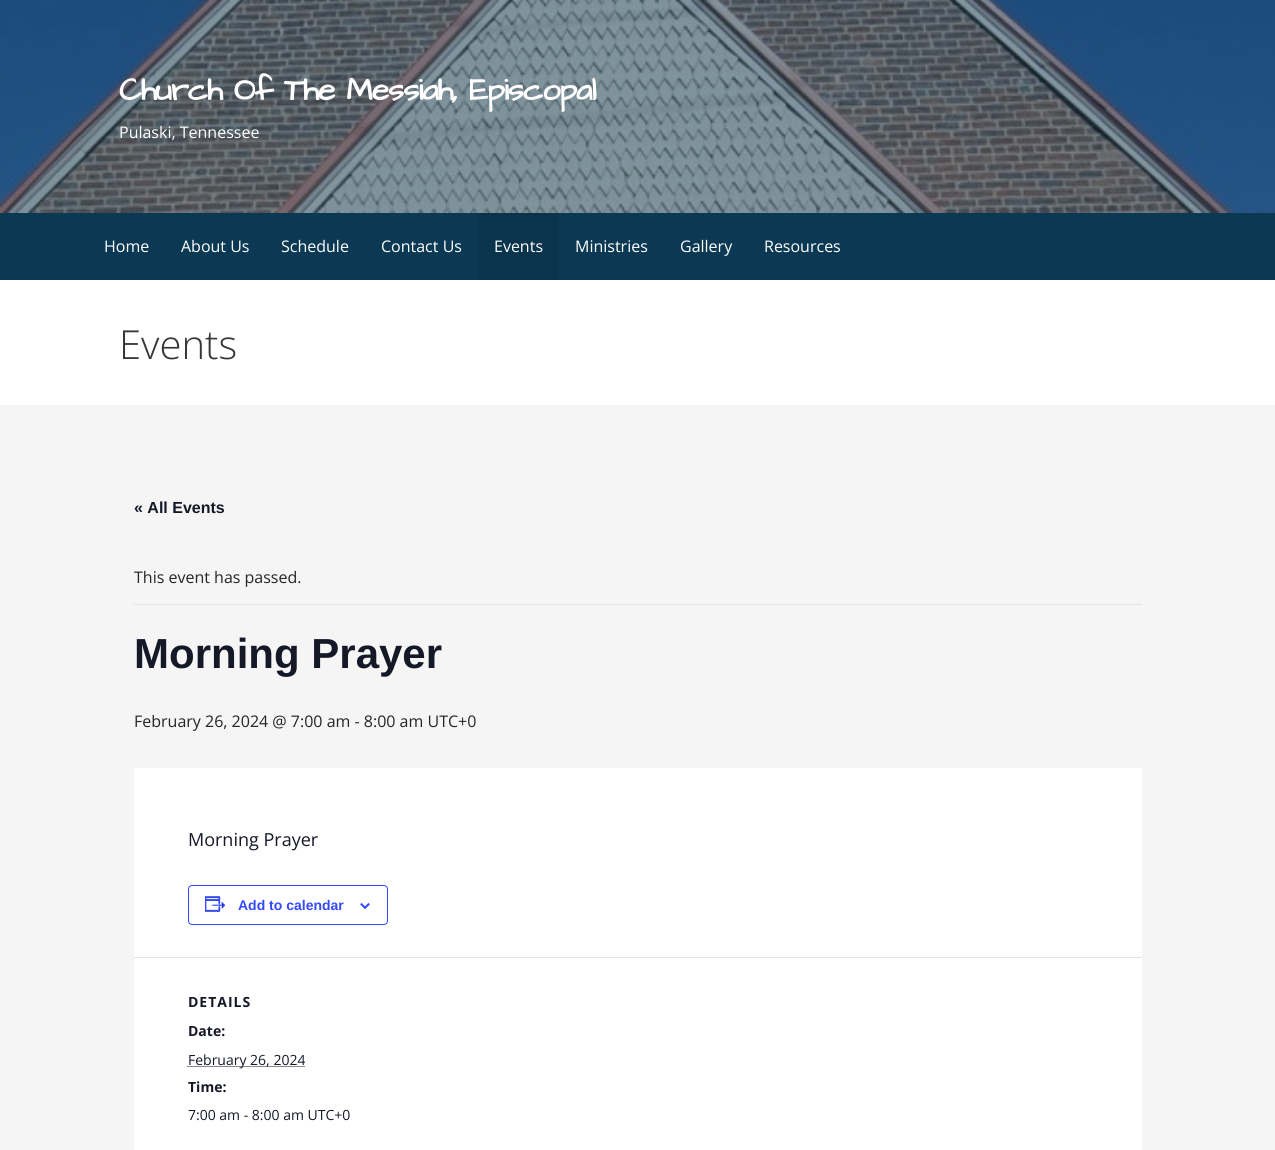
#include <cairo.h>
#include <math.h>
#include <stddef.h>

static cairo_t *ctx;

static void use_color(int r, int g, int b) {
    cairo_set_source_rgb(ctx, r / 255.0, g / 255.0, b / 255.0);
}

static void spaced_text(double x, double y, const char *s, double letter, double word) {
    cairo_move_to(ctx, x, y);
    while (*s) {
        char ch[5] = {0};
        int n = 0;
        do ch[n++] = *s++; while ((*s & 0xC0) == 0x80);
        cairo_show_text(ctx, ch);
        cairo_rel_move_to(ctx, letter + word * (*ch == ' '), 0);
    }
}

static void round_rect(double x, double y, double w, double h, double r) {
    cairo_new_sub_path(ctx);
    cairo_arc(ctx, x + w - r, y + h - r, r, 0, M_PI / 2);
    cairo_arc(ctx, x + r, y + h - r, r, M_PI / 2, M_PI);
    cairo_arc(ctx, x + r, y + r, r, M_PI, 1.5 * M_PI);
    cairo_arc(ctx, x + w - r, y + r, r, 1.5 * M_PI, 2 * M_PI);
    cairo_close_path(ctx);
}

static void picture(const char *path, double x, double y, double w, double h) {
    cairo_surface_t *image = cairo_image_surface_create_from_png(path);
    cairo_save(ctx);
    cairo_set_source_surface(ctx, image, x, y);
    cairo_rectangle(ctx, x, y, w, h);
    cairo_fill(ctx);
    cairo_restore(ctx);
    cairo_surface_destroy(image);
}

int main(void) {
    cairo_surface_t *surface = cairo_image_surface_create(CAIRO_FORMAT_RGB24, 1275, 1150);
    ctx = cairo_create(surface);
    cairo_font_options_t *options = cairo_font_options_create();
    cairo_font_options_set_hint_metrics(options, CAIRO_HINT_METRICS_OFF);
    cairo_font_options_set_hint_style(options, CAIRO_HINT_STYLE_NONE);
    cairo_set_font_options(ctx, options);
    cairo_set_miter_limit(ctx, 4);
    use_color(245, 245, 245);
    cairo_paint(ctx);
    picture("img1.png", 0, 0, 1275, 213);
    cairo_select_font_face(ctx, "Architects Daughter", CAIRO_FONT_SLANT_NORMAL, CAIRO_FONT_WEIGHT_BOLD);
    cairo_set_font_size(ctx, 32);
    use_color(255, 255, 255);
    spaced_text(119, 100, "Church Of The Messiah, Episcopal", -0.95, 0);
    cairo_select_font_face(ctx, "Open Sans", CAIRO_FONT_SLANT_NORMAL, CAIRO_FONT_WEIGHT_NORMAL);
    cairo_set_font_size(ctx, 16);
    cairo_move_to(ctx, 119, 138);
    cairo_show_text(ctx, "Pulaski, Tennessee");
    use_color(11, 57, 84);
    cairo_rectangle(ctx, 0, 213, 1275, 67);
    cairo_fill(ctx);
    use_color(255, 255, 255);
    cairo_move_to(ctx, 104, 252);
    cairo_show_text(ctx, "Home");
    cairo_move_to(ctx, 181, 252);
    cairo_show_text(ctx, "About Us");
    cairo_move_to(ctx, 281, 252);
    cairo_show_text(ctx, "Schedule");
    cairo_move_to(ctx, 381, 252);
    cairo_show_text(ctx, "Contact Us");
    use_color(10, 51, 76);
    cairo_rectangle(ctx, 478, 213, 81, 67);
    cairo_fill(ctx);
    use_color(255, 255, 255);
    cairo_move_to(ctx, 494, 252);
    cairo_show_text(ctx, "Events");
    cairo_move_to(ctx, 575, 252);
    cairo_show_text(ctx, "Ministries");
    cairo_move_to(ctx, 680, 252);
    cairo_show_text(ctx, "Gallery");
    cairo_move_to(ctx, 764, 252);
    cairo_show_text(ctx, "Resources");
    cairo_rectangle(ctx, 0, 280, 1275, 125);
    cairo_fill(ctx);
    cairo_select_font_face(ctx, "Open Sans Light", CAIRO_FONT_SLANT_NORMAL, CAIRO_FONT_WEIGHT_NORMAL);
    cairo_set_font_size(ctx, 40);
    use_color(53, 53, 53);
    cairo_move_to(ctx, 119, 359);
    cairo_show_text(ctx, "Events");
    cairo_select_font_face(ctx, "Liberation Sans", CAIRO_FONT_SLANT_NORMAL, CAIRO_FONT_WEIGHT_BOLD);
    cairo_set_font_size(ctx, 16);
    use_color(20, 24, 39);
    cairo_move_to(ctx, 134, 513);
    cairo_show_text(ctx, "« All Events");
    use_color(228, 228, 228);
    cairo_rectangle(ctx, 134, 604, 1008, 1);
    cairo_fill(ctx);
    cairo_select_font_face(ctx, "Open Sans", CAIRO_FONT_SLANT_NORMAL, CAIRO_FONT_WEIGHT_NORMAL);
    use_color(37, 37, 37);
    cairo_move_to(ctx, 134, 583);
    cairo_show_text(ctx, "This event has passed.");
    cairo_select_font_face(ctx, "Liberation Sans", CAIRO_FONT_SLANT_NORMAL, CAIRO_FONT_WEIGHT_BOLD);
    cairo_set_font_size(ctx, 42);
    use_color(20, 24, 39);
    cairo_move_to(ctx, 134, 668);
    cairo_show_text(ctx, "Morning Prayer");
    cairo_select_font_face(ctx, "Open Sans", CAIRO_FONT_SLANT_NORMAL, CAIRO_FONT_WEIGHT_NORMAL);
    cairo_set_font_size(ctx, 16);
    use_color(37, 37, 37);
    cairo_move_to(ctx, 134, 727);
    cairo_show_text(ctx, "February 26, 2024 @ 7:00 am - 8:00 am UTC+0");
    use_color(255, 255, 255);
    cairo_rectangle(ctx, 134, 768, 1008, 382);
    cairo_fill(ctx);
    cairo_set_font_size(ctx, 18);
    use_color(20, 24, 39);
    cairo_move_to(ctx, 188, 846);
    cairo_show_text(ctx, "Morning Prayer");
    round_rect(188.5, 885.5, 199, 39, 3.5);
    use_color(51, 74, 255);
    cairo_set_line_width(ctx, 1);
    cairo_stroke(ctx);
    picture("img2.png", 205, 896, 21, 16);
    cairo_select_font_face(ctx, "Liberation Sans", CAIRO_FONT_SLANT_NORMAL, CAIRO_FONT_WEIGHT_BOLD);
    cairo_set_font_size(ctx, 14);
    cairo_move_to(ctx, 238, 910);
    cairo_show_text(ctx, "Add to calendar");
    picture("img3.png", 360, 903, 10, 6);
    use_color(228, 228, 228);
    cairo_rectangle(ctx, 134, 957, 1008, 1);
    cairo_fill(ctx);
    cairo_select_font_face(ctx, "Open Sans", CAIRO_FONT_SLANT_NORMAL, CAIRO_FONT_WEIGHT_BOLD);
    use_color(20, 24, 39);
    spaced_text(188, 1007, "DETAILS", 1, 0);
    cairo_move_to(ctx, 188, 1036);
    cairo_show_text(ctx, "Date:");
    cairo_new_path(ctx);
    cairo_move_to(ctx, 187.5, 1066.5);
    cairo_line_to(ctx, 305, 1066.5);
    cairo_set_dash(ctx, (double[]){1, 1}, 2, 0);
    cairo_stroke(ctx);
    cairo_select_font_face(ctx, "Open Sans", CAIRO_FONT_SLANT_NORMAL, CAIRO_FONT_WEIGHT_NORMAL);
    cairo_move_to(ctx, 188, 1065);
    cairo_show_text(ctx, "February 26, 2024");
    cairo_select_font_face(ctx, "Open Sans", CAIRO_FONT_SLANT_NORMAL, CAIRO_FONT_WEIGHT_BOLD);
    cairo_move_to(ctx, 188, 1092);
    cairo_show_text(ctx, "Time:");
    cairo_select_font_face(ctx, "Open Sans", CAIRO_FONT_SLANT_NORMAL, CAIRO_FONT_WEIGHT_NORMAL);
    cairo_move_to(ctx, 188, 1120);
    cairo_show_text(ctx, "7:00 am - 8:00 am UTC+0");
    cairo_surface_write_to_png(surface, "result.png");
    cairo_font_options_destroy(options);
    cairo_destroy(ctx);
    cairo_surface_destroy(surface);
    return 0;
}
